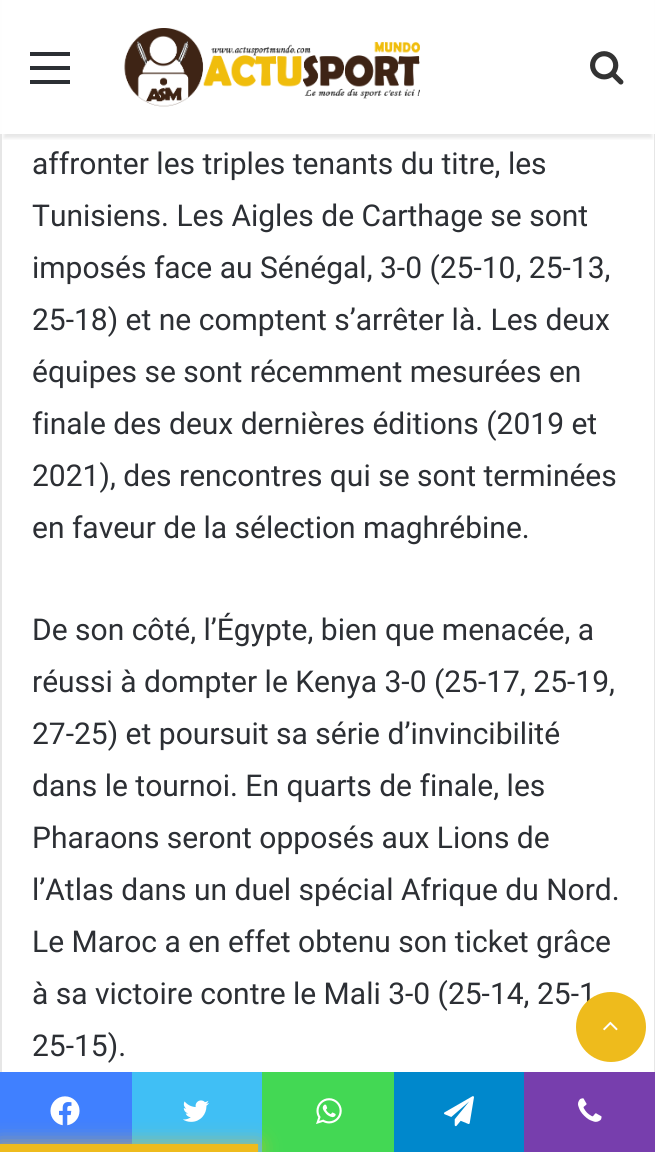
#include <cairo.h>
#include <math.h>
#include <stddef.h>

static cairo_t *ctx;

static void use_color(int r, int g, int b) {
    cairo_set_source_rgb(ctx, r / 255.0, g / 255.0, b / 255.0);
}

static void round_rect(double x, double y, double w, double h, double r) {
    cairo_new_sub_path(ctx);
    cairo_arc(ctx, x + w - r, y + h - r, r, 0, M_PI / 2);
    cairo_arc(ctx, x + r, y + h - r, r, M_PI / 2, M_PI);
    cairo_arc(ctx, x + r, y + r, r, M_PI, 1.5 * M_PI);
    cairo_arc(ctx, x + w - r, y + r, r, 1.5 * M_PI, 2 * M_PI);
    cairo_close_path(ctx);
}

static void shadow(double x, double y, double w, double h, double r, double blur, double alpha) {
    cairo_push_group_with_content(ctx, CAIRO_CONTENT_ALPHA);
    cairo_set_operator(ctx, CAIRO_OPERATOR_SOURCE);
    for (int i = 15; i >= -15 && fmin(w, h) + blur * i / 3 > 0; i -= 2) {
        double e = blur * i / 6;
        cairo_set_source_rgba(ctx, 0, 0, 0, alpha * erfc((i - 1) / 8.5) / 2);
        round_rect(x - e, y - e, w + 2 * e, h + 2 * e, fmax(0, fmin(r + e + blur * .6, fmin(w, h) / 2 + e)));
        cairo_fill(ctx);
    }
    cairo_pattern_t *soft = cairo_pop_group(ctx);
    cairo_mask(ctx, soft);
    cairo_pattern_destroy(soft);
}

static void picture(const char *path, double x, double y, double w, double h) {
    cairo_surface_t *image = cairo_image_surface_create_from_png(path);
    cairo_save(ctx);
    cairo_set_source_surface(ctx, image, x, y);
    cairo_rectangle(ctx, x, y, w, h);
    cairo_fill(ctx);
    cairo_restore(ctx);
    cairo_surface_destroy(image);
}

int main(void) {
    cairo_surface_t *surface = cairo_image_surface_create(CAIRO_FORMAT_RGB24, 655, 1152);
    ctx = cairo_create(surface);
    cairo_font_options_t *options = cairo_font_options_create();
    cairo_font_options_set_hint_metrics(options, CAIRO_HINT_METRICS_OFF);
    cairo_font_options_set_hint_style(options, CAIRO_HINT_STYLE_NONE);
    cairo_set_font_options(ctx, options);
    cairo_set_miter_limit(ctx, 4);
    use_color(255, 255, 255);
    cairo_paint(ctx);
    cairo_rectangle(ctx, 1, -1, 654, 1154);
    use_color(230, 230, 230);
    cairo_stroke(ctx);
    cairo_save(ctx);
    cairo_rectangle(ctx, 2, 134, 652, 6);
    cairo_clip(ctx);
    use_color(0, 0, 0);
    shadow(4, 12, 648, 126, 0, 2, 0.1);
    cairo_restore(ctx);
    cairo_set_source_rgba(ctx, 1, 1, 1, 0.95);
    cairo_rectangle(ctx, 0, 0, 655, 134);
    cairo_fill(ctx);
    use_color(44, 47, 52);
    cairo_rectangle(ctx, 30, 66, 40, 4);
    cairo_fill(ctx);
    cairo_rectangle(ctx, 30, 52, 40, 4);
    cairo_fill(ctx);
    cairo_rectangle(ctx, 30, 80, 40, 4);
    cairo_fill(ctx);
    picture("img1.png", 124, 28, 296, 79);
    picture("img2.png", 590, 51, 34, 34);
    cairo_select_font_face(ctx, "Roboto", CAIRO_FONT_SLANT_NORMAL, CAIRO_FONT_WEIGHT_NORMAL);
    cairo_set_font_size(ctx, 30);
    cairo_move_to(ctx, 32, 174);
    cairo_show_text(ctx, "affronter les triples tenants du titre, les");
    cairo_move_to(ctx, 32, 226);
    cairo_show_text(ctx, "Tunisiens. Les Aigles de Carthage se sont");
    cairo_move_to(ctx, 32, 278);
    cairo_show_text(ctx, "imposés face au Sénégal, 3-0 (25-10, 25-13,");
    cairo_move_to(ctx, 32, 330);
    cairo_show_text(ctx, "25-18) et ne comptent s’arrêter là. Les deux");
    cairo_move_to(ctx, 32, 382);
    cairo_show_text(ctx, "équipes se sont récemment mesurées en");
    cairo_move_to(ctx, 32, 434);
    cairo_show_text(ctx, "finale des deux dernières éditions (2019 et");
    cairo_move_to(ctx, 32, 486);
    cairo_show_text(ctx, "2021), des rencontres qui se sont terminées");
    cairo_move_to(ctx, 32, 538);
    cairo_show_text(ctx, "en faveur de la sélection maghrébine.");
    cairo_move_to(ctx, 32, 640);
    cairo_show_text(ctx, "De son côté, l’Égypte, bien que menacée, a");
    cairo_move_to(ctx, 32, 692);
    cairo_show_text(ctx, "réussi à dompter le Kenya 3-0 (25-17, 25-19,");
    cairo_move_to(ctx, 32, 744);
    cairo_show_text(ctx, "27-25) et poursuit sa série d’invincibilité");
    cairo_move_to(ctx, 32, 796);
    cairo_show_text(ctx, "dans le tournoi. En quarts de finale, les");
    cairo_move_to(ctx, 32, 848);
    cairo_show_text(ctx, "Pharaons seront opposés aux Lions de");
    cairo_move_to(ctx, 32, 900);
    cairo_show_text(ctx, "l’Atlas dans un duel spécial Afrique du Nord.");
    cairo_move_to(ctx, 32, 952);
    cairo_show_text(ctx, "Le Maroc a en effet obtenu son ticket grâce");
    cairo_move_to(ctx, 32, 1004);
    cairo_show_text(ctx, "à sa victoire contre le Mali 3-0 (25-14, 25-1");
    cairo_move_to(ctx, 32, 1056);
    cairo_show_text(ctx, "25-15).");
    use_color(238, 187, 28);
    cairo_new_path(ctx);
    cairo_arc(ctx, 611, 1027, 35, 0, 2 * M_PI);
    cairo_fill(ctx);
    picture("img3.png", 603, 1021, 15, 10);
    use_color(64, 128, 255);
    cairo_rectangle(ctx, 0, 1072, 132, 72);
    cairo_fill(ctx);
    picture("img4.png", 50, 1096, 30, 30);
    use_color(64, 191, 245);
    cairo_rectangle(ctx, 132, 1072, 130, 80);
    cairo_fill(ctx);
    picture("img5.png", 183, 1100, 26, 22);
    use_color(67, 216, 84);
    cairo_rectangle(ctx, 262, 1072, 132, 80);
    cairo_fill(ctx);
    picture("img6.png", 316, 1098, 26, 26);
    use_color(0, 136, 204);
    cairo_rectangle(ctx, 394, 1072, 130, 80);
    cairo_fill(ctx);
    picture("img7.png", 444, 1096, 30, 31);
    use_color(119, 62, 173);
    cairo_rectangle(ctx, 524, 1072, 131, 80);
    cairo_fill(ctx);
    picture("img8.png", 578, 1098, 24, 24);
    use_color(238, 187, 28);
    shadow(0, 1144, 258, 8, 0, 10, 0.7);
    use_color(238, 187, 28);
    cairo_rectangle(ctx, 0, 1144, 258, 8);
    cairo_fill(ctx);
    cairo_surface_write_to_png(surface, "result.png");
    cairo_font_options_destroy(options);
    cairo_destroy(ctx);
    cairo_surface_destroy(surface);
    return 0;
}
